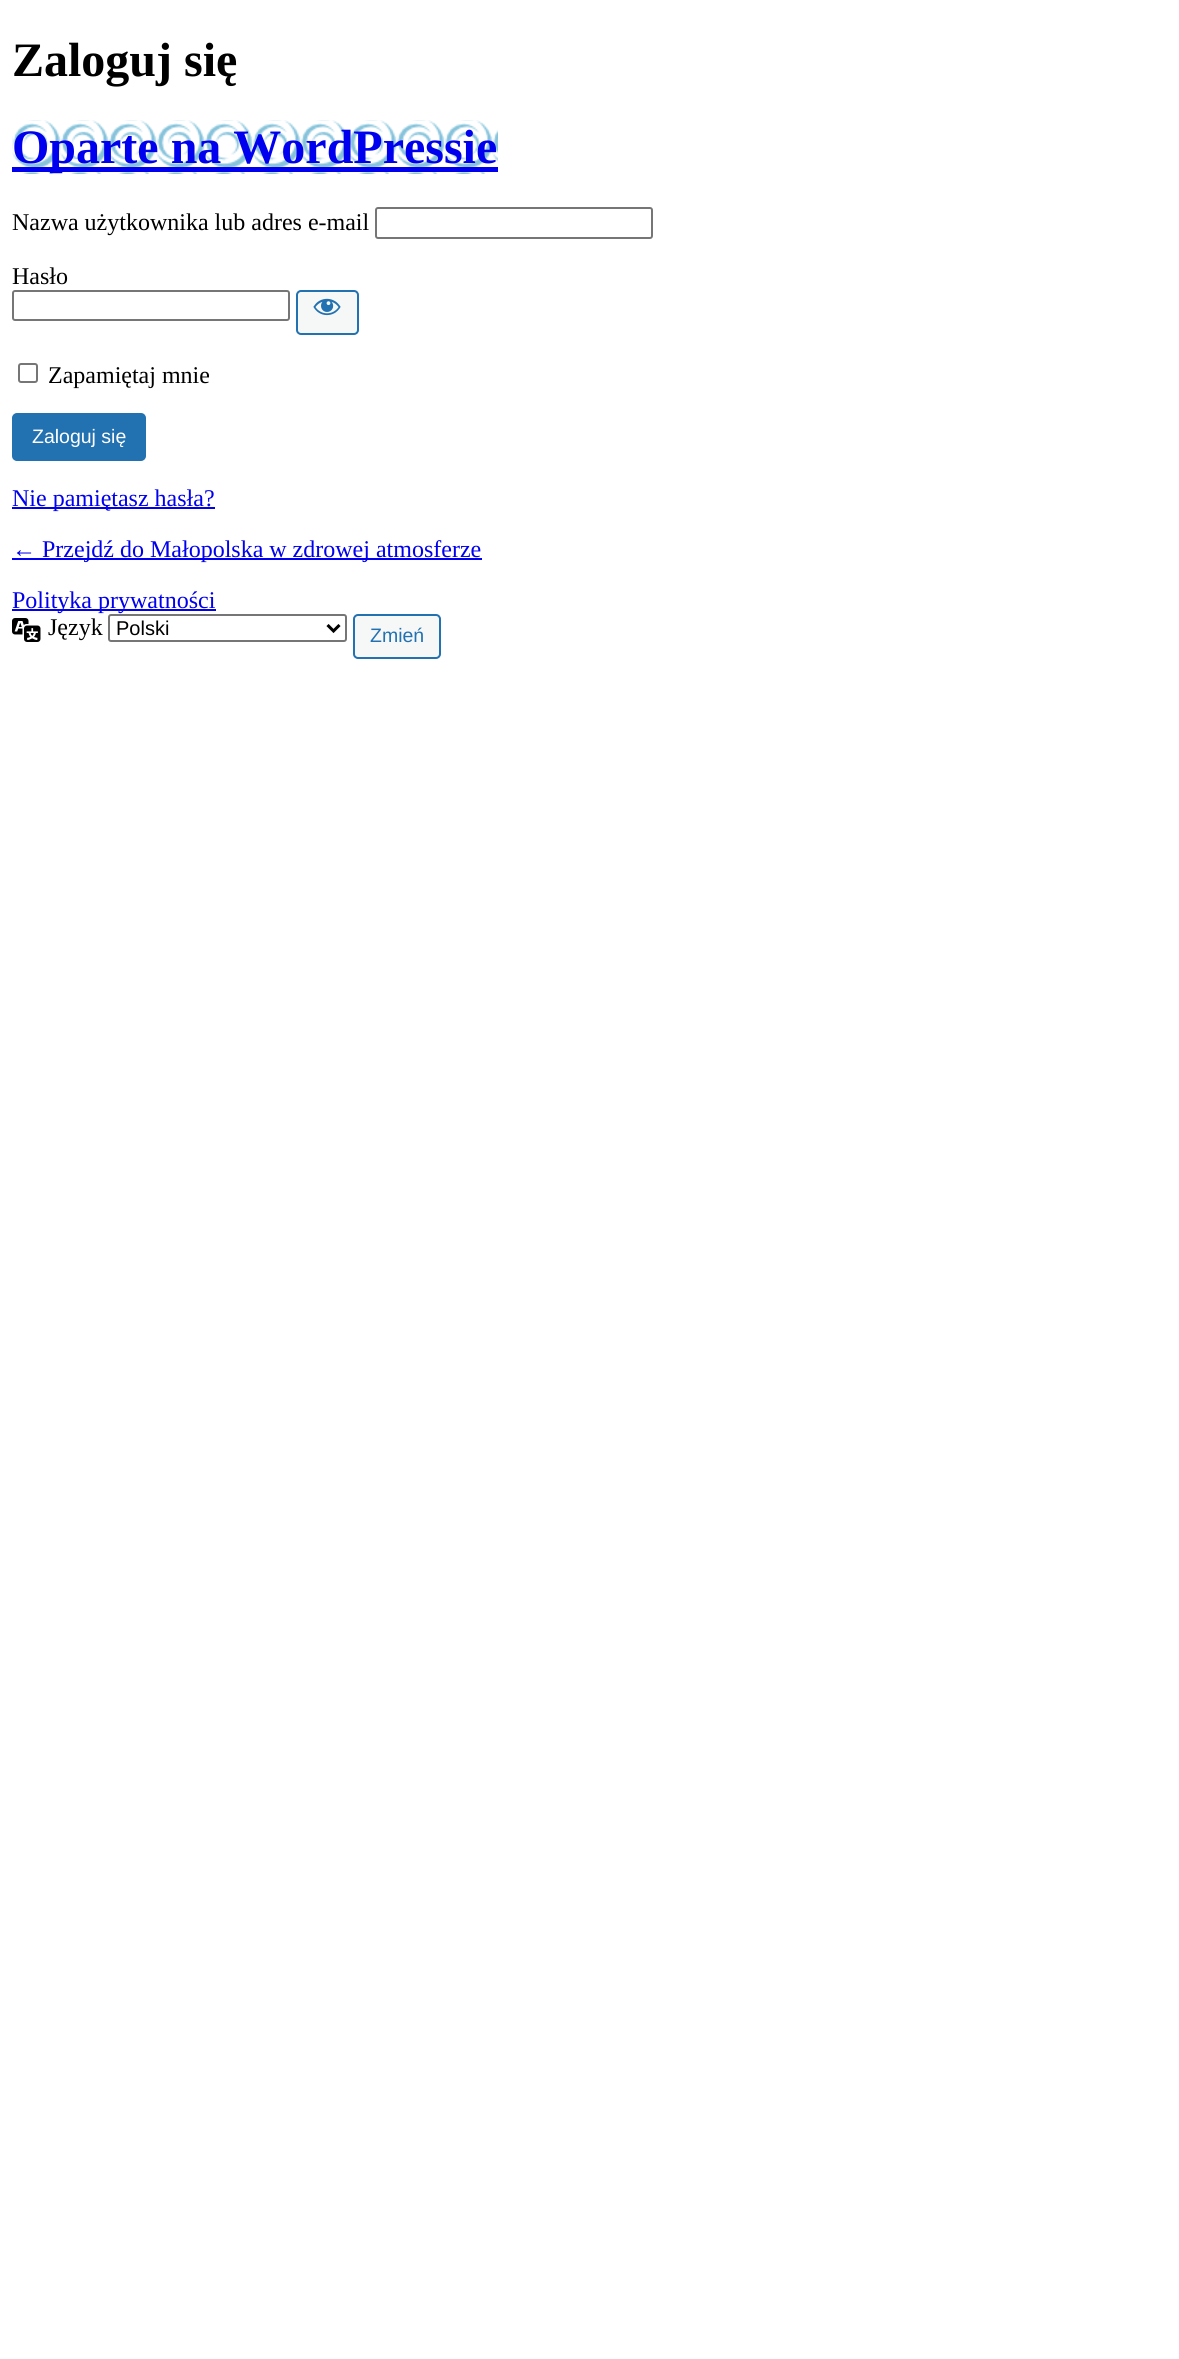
#include <cairo.h>
#include <math.h>
#include <stddef.h>

static cairo_t *ctx;

static void use_color(int r, int g, int b) {
    cairo_set_source_rgb(ctx, r / 255.0, g / 255.0, b / 255.0);
}

static void round_rect(double x, double y, double w, double h, double r) {
    cairo_new_sub_path(ctx);
    cairo_arc(ctx, x + w - r, y + h - r, r, 0, M_PI / 2);
    cairo_arc(ctx, x + r, y + h - r, r, M_PI / 2, M_PI);
    cairo_arc(ctx, x + r, y + r, r, M_PI, 1.5 * M_PI);
    cairo_arc(ctx, x + w - r, y + r, r, 1.5 * M_PI, 2 * M_PI);
    cairo_close_path(ctx);
}

static void picture(const char *path, double x, double y, double w, double h) {
    cairo_surface_t *image = cairo_image_surface_create_from_png(path);
    cairo_save(ctx);
    cairo_set_source_surface(ctx, image, x, y);
    cairo_rectangle(ctx, x, y, w, h);
    cairo_fill(ctx);
    cairo_restore(ctx);
    cairo_surface_destroy(image);
}

int main(void) {
    cairo_surface_t *surface = cairo_image_surface_create(CAIRO_FORMAT_RGB24, 1179, 2359);
    ctx = cairo_create(surface);
    cairo_font_options_t *options = cairo_font_options_create();
    cairo_font_options_set_hint_metrics(options, CAIRO_HINT_METRICS_OFF);
    cairo_font_options_set_hint_style(options, CAIRO_HINT_STYLE_NONE);
    cairo_set_font_options(ctx, options);
    cairo_set_miter_limit(ctx, 4);
    use_color(255, 255, 255);
    cairo_paint(ctx);
    cairo_select_font_face(ctx, "Liberation Serif", CAIRO_FONT_SLANT_NORMAL, CAIRO_FONT_WEIGHT_BOLD);
    cairo_set_font_size(ctx, 48);
    use_color(0, 0, 0);
    cairo_move_to(ctx, 12, 76);
    cairo_show_text(ctx, "Zaloguj się");
    picture("img1.png", 12, 120, 486, 54);
    use_color(0, 0, 238);
    cairo_rectangle(ctx, 12, 167, 486, 5);
    cairo_fill(ctx);
    cairo_move_to(ctx, 12, 163);
    cairo_show_text(ctx, "Oparte na WordPressie");
    cairo_select_font_face(ctx, "Liberation Serif", CAIRO_FONT_SLANT_NORMAL, CAIRO_FONT_WEIGHT_NORMAL);
    cairo_set_font_size(ctx, 24);
    use_color(0, 0, 0);
    cairo_move_to(ctx, 12, 230);
    cairo_show_text(ctx, "Nazwa użytkownika lub adres e-mail");
    round_rect(376, 208, 276, 30, 2);
    use_color(118, 118, 118);
    cairo_stroke(ctx);
    use_color(0, 0, 0);
    cairo_move_to(ctx, 12, 284);
    cairo_show_text(ctx, "Hasło");
    round_rect(13, 291, 276, 29, 2);
    use_color(118, 118, 118);
    cairo_stroke(ctx);
    use_color(246, 247, 247);
    round_rect(297, 291, 61, 43, 4);
    cairo_fill_preserve(ctx);
    use_color(34, 113, 177);
    cairo_stroke(ctx);
    picture("img2.png", 313, 298, 28, 18);
    round_rect(19, 364, 18, 18, 2);
    use_color(118, 118, 118);
    cairo_stroke(ctx);
    use_color(0, 0, 0);
    cairo_move_to(ctx, 48, 383);
    cairo_show_text(ctx, "Zapamiętaj mnie");
    use_color(34, 113, 177);
    round_rect(13, 414, 132, 46, 4);
    cairo_fill_preserve(ctx);
    cairo_stroke(ctx);
    cairo_select_font_face(ctx, "Liberation Sans", CAIRO_FONT_SLANT_NORMAL, CAIRO_FONT_WEIGHT_NORMAL);
    cairo_set_font_size(ctx, 19.5);
    use_color(255, 255, 255);
    cairo_move_to(ctx, 32, 443);
    cairo_show_text(ctx, "Zaloguj się");
    use_color(0, 0, 238);
    cairo_rectangle(ctx, 12, 507, 203, 2);
    cairo_fill(ctx);
    cairo_select_font_face(ctx, "Liberation Serif", CAIRO_FONT_SLANT_NORMAL, CAIRO_FONT_WEIGHT_NORMAL);
    cairo_set_font_size(ctx, 24);
    cairo_move_to(ctx, 12, 506);
    cairo_show_text(ctx, "Nie pamiętasz hasła?");
    cairo_rectangle(ctx, 12, 558, 470, 2);
    cairo_fill(ctx);
    cairo_move_to(ctx, 12, 557);
    cairo_show_text(ctx, "← Przejdź do Małopolska w zdrowej atmosferze");
    cairo_rectangle(ctx, 12, 609, 204, 2);
    cairo_fill(ctx);
    cairo_move_to(ctx, 12, 608);
    cairo_show_text(ctx, "Polityka prywatności");
    picture("img3.png", 12, 618, 29, 24);
    use_color(0, 0, 0);
    cairo_move_to(ctx, 48, 635);
    cairo_show_text(ctx, "Język");
    round_rect(109, 615, 237, 26, 2);
    use_color(118, 118, 118);
    cairo_stroke(ctx);
    cairo_new_path(ctx);
    cairo_move_to(ctx, 327.5, 625);
    cairo_line_to(ctx, 333.5, 631);
    cairo_line_to(ctx, 339.5, 625);
    use_color(0, 0, 0);
    cairo_set_line_width(ctx, 3);
    cairo_stroke(ctx);
    cairo_select_font_face(ctx, "Liberation Sans", CAIRO_FONT_SLANT_NORMAL, CAIRO_FONT_WEIGHT_NORMAL);
    cairo_set_font_size(ctx, 20);
    cairo_move_to(ctx, 116, 635);
    cairo_show_text(ctx, "Polski");
    use_color(246, 247, 247);
    round_rect(354, 615, 86, 43, 4);
    cairo_fill_preserve(ctx);
    use_color(34, 113, 177);
    cairo_set_line_width(ctx, 2);
    cairo_stroke(ctx);
    cairo_set_font_size(ctx, 19.5);
    cairo_move_to(ctx, 370, 642);
    cairo_show_text(ctx, "Zmień");
    cairo_surface_write_to_png(surface, "result.png");
    cairo_font_options_destroy(options);
    cairo_destroy(ctx);
    cairo_surface_destroy(surface);
    return 0;
}
